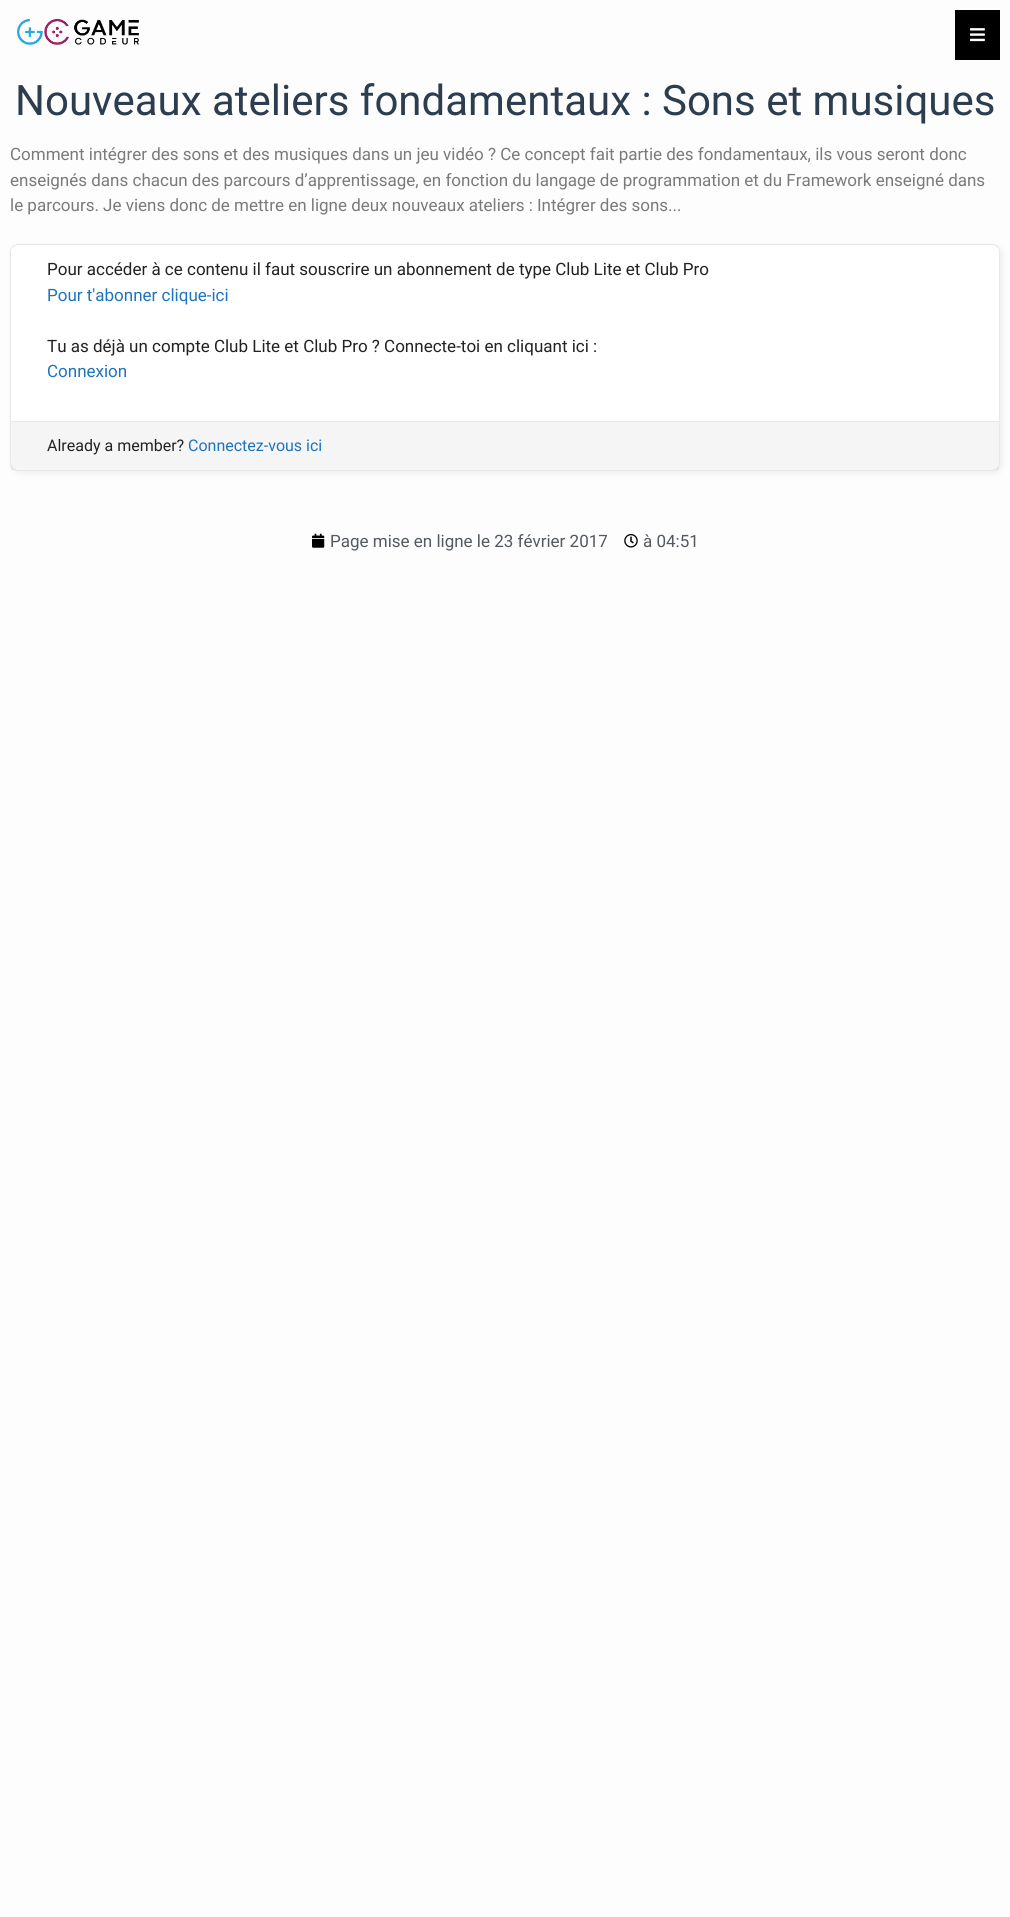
#include <cairo.h>
#include <math.h>
#include <stddef.h>

static cairo_t *ctx;

static void use_color(int r, int g, int b) {
    cairo_set_source_rgb(ctx, r / 255.0, g / 255.0, b / 255.0);
}

static void round_rect(double x, double y, double w, double h, double r) {
    cairo_new_sub_path(ctx);
    cairo_arc(ctx, x + w - r, y + h - r, r, 0, M_PI / 2);
    cairo_arc(ctx, x + r, y + h - r, r, M_PI / 2, M_PI);
    cairo_arc(ctx, x + r, y + r, r, M_PI, 1.5 * M_PI);
    cairo_arc(ctx, x + w - r, y + r, r, 1.5 * M_PI, 2 * M_PI);
    cairo_close_path(ctx);
}

static void shadow(double x, double y, double w, double h, double r, double blur, double alpha) {
    cairo_push_group_with_content(ctx, CAIRO_CONTENT_ALPHA);
    cairo_set_operator(ctx, CAIRO_OPERATOR_SOURCE);
    for (int i = 15; i >= -15 && fmin(w, h) + blur * i / 3 > 0; i -= 2) {
        double e = blur * i / 6;
        cairo_set_source_rgba(ctx, 0, 0, 0, alpha * erfc((i - 1) / 8.5) / 2);
        round_rect(x - e, y - e, w + 2 * e, h + 2 * e, fmax(0, fmin(r + e + blur * .6, fmin(w, h) / 2 + e)));
        cairo_fill(ctx);
    }
    cairo_pattern_t *soft = cairo_pop_group(ctx);
    cairo_mask(ctx, soft);
    cairo_pattern_destroy(soft);
}

static void picture(const char *path, double x, double y, double w, double h) {
    cairo_surface_t *image = cairo_image_surface_create_from_png(path);
    cairo_save(ctx);
    cairo_set_source_surface(ctx, image, x, y);
    cairo_rectangle(ctx, x, y, w, h);
    cairo_fill(ctx);
    cairo_restore(ctx);
    cairo_surface_destroy(image);
}

int main(void) {
    cairo_surface_t *surface = cairo_image_surface_create(CAIRO_FORMAT_RGB24, 1010, 1917);
    ctx = cairo_create(surface);
    cairo_font_options_t *options = cairo_font_options_create();
    cairo_font_options_set_hint_metrics(options, CAIRO_HINT_METRICS_OFF);
    cairo_font_options_set_hint_style(options, CAIRO_HINT_STYLE_NONE);
    cairo_set_font_options(ctx, options);
    cairo_set_miter_limit(ctx, 4);
    use_color(253, 253, 253);
    cairo_paint(ctx);
    picture("img1.png", 17, 18, 122, 27);
    use_color(0, 0, 0);
    cairo_rectangle(ctx, 955, 10, 45, 50);
    cairo_fill(ctx);
    picture("img2.png", 970, 28, 15, 14);
    cairo_select_font_face(ctx, "Roboto", CAIRO_FONT_SLANT_NORMAL, CAIRO_FONT_WEIGHT_NORMAL);
    cairo_set_font_size(ctx, 42);
    use_color(44, 61, 80);
    cairo_move_to(ctx, 15, 115);
    cairo_show_text(ctx, "Nouveaux ateliers fondamentaux : Sons et musiques");
    cairo_set_font_size(ctx, 17);
    use_color(122, 122, 122);
    cairo_move_to(ctx, 10, 160);
    cairo_show_text(ctx, "Comment intégrer des sons et des musiques dans un jeu vidéo ? Ce concept fait partie des fondamentaux, ils vous seront donc");
    cairo_move_to(ctx, 10, 186);
    cairo_show_text(ctx, "enseignés dans chacun des parcours d’apprentissage, en fonction du langage de programmation et du Framework enseigné dans");
    cairo_move_to(ctx, 10, 211);
    cairo_show_text(ctx, "le parcours. Je viens donc de mettre en ligne deux nouveaux ateliers : Intégrer des sons...");
    use_color(0, 0, 0);
    shadow(12, 246, 990, 227, 8, 3.5, 0.07);
    use_color(255, 255, 255);
    round_rect(10.5, 244.5, 989, 226, 7.5);
    cairo_fill_preserve(ctx);
    use_color(232, 232, 232);
    cairo_set_line_width(ctx, 1);
    cairo_stroke(ctx);
    use_color(34, 34, 34);
    cairo_move_to(ctx, 47, 275);
    cairo_show_text(ctx, "Pour accéder à ce contenu il faut souscrire un abonnement de type Club Lite et Club Pro");
    use_color(30, 115, 190);
    cairo_move_to(ctx, 47, 301);
    cairo_show_text(ctx, "Pour t'abonner clique-ici");
    use_color(34, 34, 34);
    cairo_move_to(ctx, 47, 352);
    cairo_show_text(ctx, "Tu as déjà un compte Club Lite et Club Pro ? Connecte-toi en cliquant ici :");
    use_color(30, 115, 190);
    cairo_move_to(ctx, 47, 377);
    cairo_show_text(ctx, "Connexion");
    cairo_set_source_rgba(ctx, 0, 0, 0, 0.04);
    cairo_rectangle(ctx, 11, 422, 988, 48);
    cairo_fill(ctx);
    use_color(232, 232, 232);
    cairo_rectangle(ctx, 11, 421, 988, 1);
    cairo_fill(ctx);
    cairo_set_font_size(ctx, 16);
    use_color(34, 34, 34);
    cairo_move_to(ctx, 47, 451);
    cairo_show_text(ctx, "Already a member?");
    use_color(30, 115, 190);
    cairo_move_to(ctx, 188, 451);
    cairo_show_text(ctx, "Connectez-vous ici");
    picture("img3.png", 312, 533, 13, 15);
    cairo_set_font_size(ctx, 17);
    use_color(84, 89, 95);
    cairo_move_to(ctx, 330, 547);
    cairo_show_text(ctx, "Page mise en ligne le 23 février 2017");
    picture("img4.png", 624, 534, 14, 14);
    cairo_move_to(ctx, 643, 547);
    cairo_show_text(ctx, "à 04:51");
    cairo_surface_write_to_png(surface, "result.png");
    cairo_font_options_destroy(options);
    cairo_destroy(ctx);
    cairo_surface_destroy(surface);
    return 0;
}
